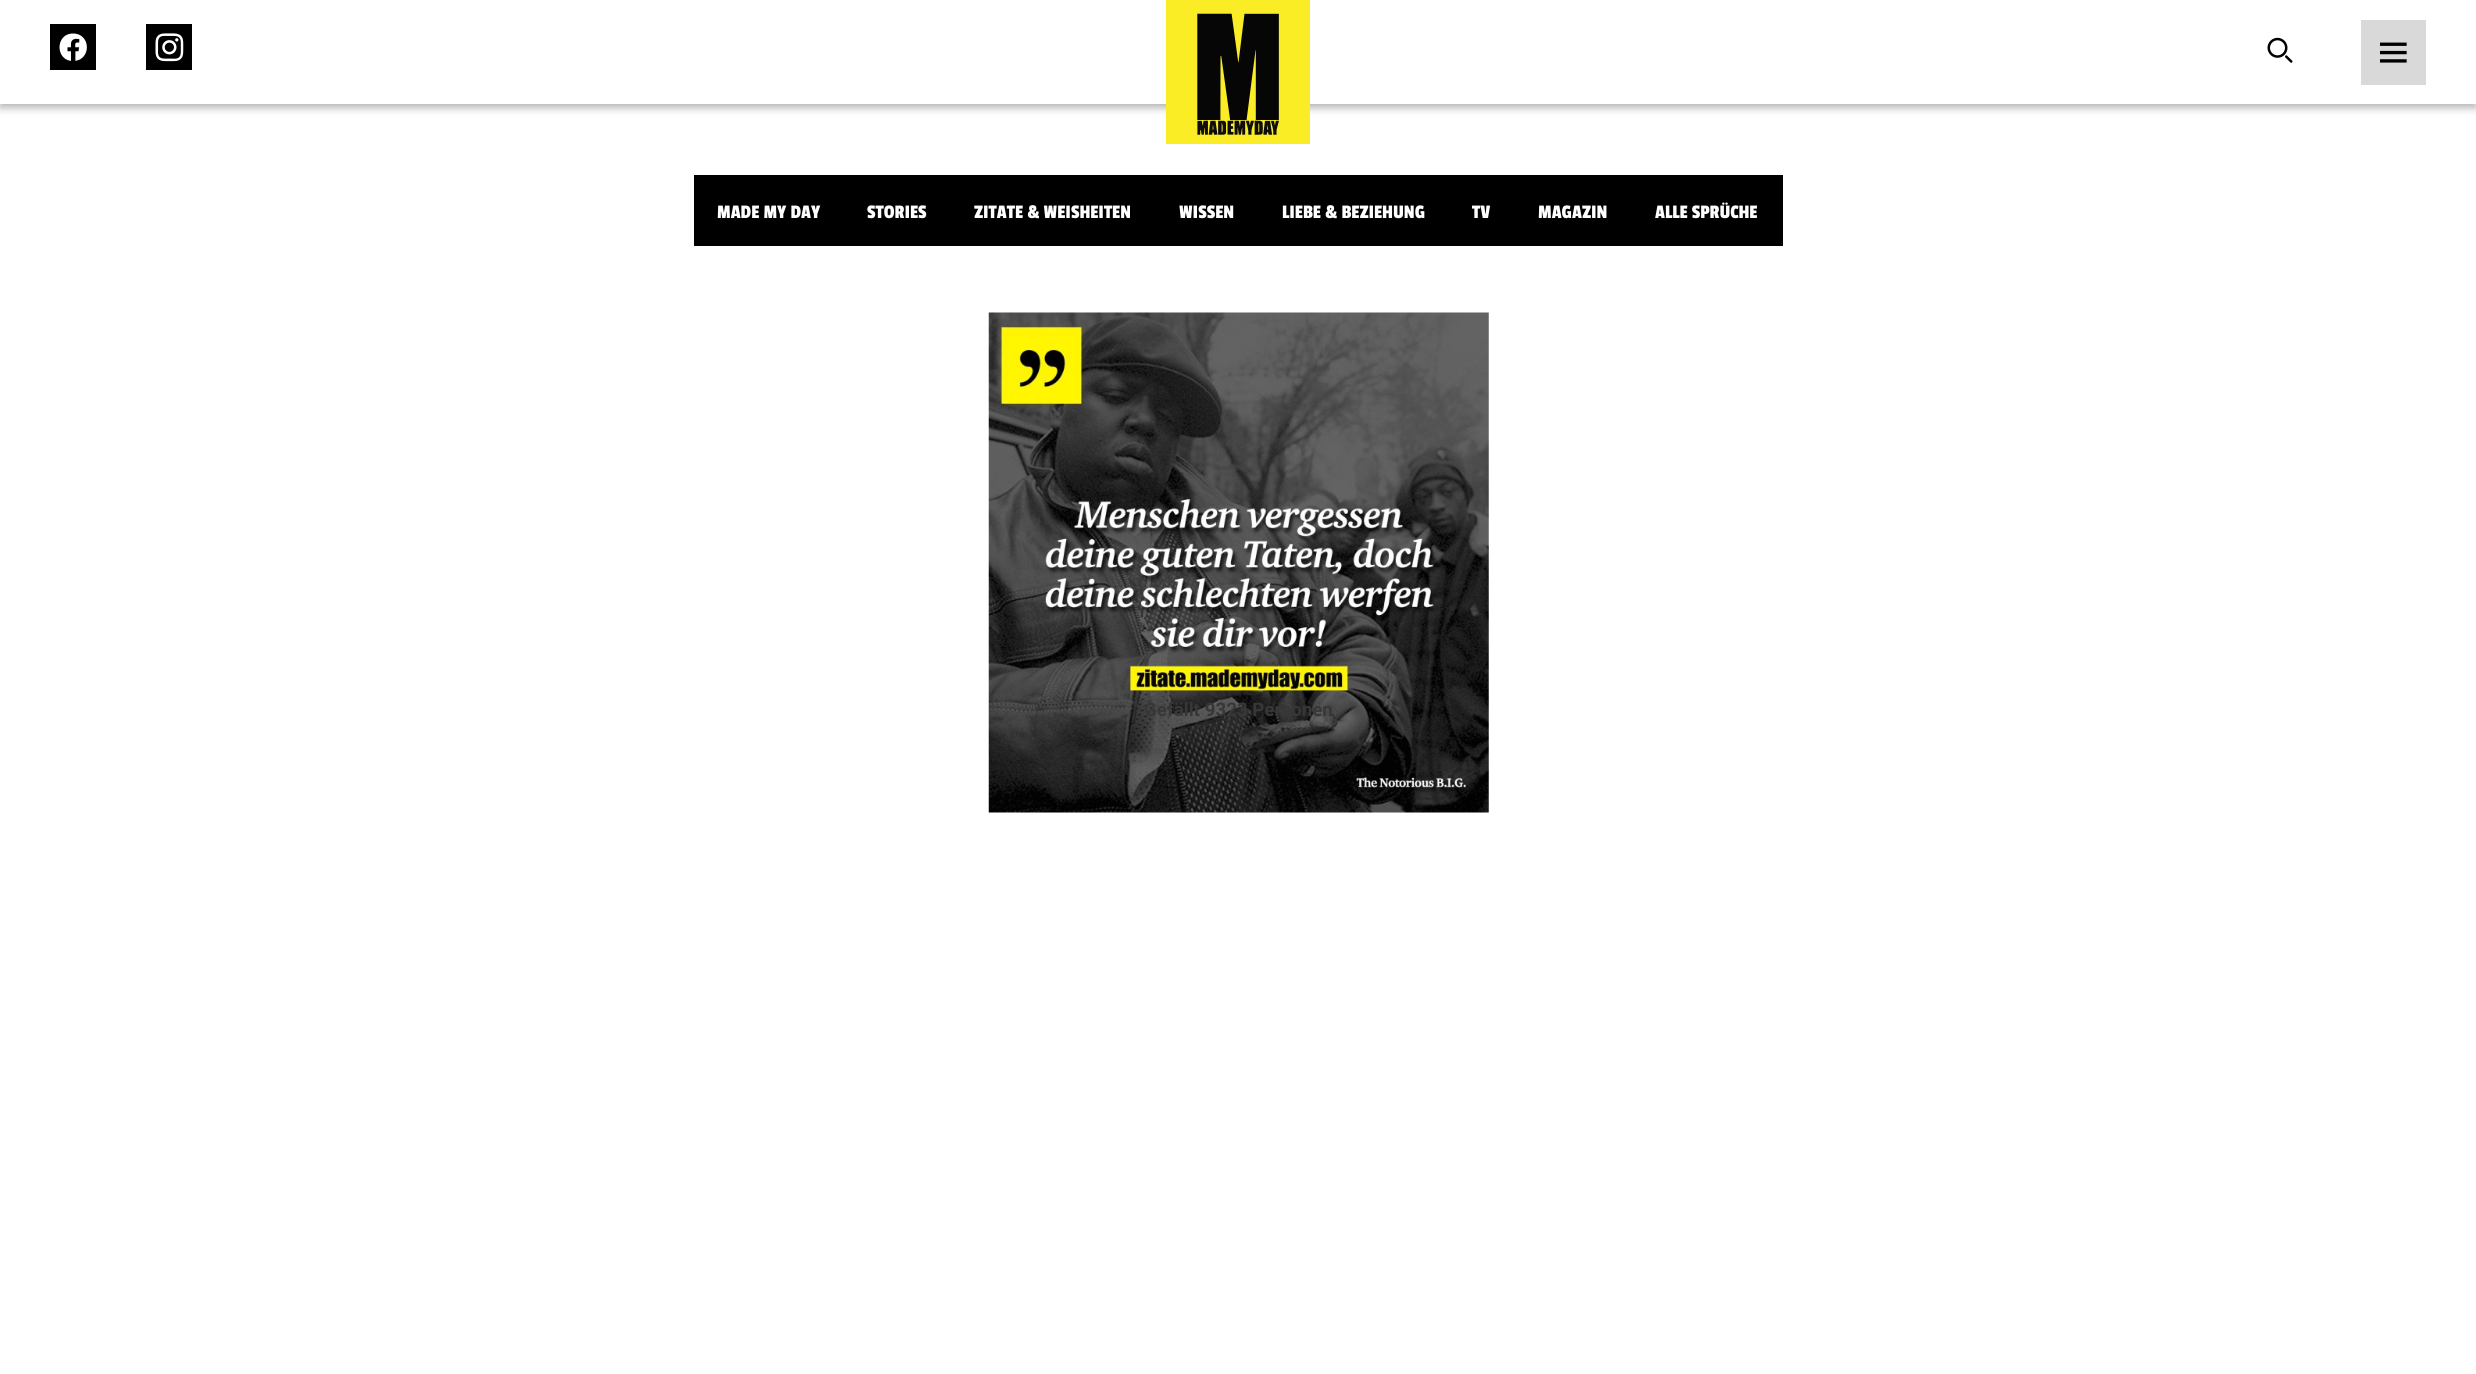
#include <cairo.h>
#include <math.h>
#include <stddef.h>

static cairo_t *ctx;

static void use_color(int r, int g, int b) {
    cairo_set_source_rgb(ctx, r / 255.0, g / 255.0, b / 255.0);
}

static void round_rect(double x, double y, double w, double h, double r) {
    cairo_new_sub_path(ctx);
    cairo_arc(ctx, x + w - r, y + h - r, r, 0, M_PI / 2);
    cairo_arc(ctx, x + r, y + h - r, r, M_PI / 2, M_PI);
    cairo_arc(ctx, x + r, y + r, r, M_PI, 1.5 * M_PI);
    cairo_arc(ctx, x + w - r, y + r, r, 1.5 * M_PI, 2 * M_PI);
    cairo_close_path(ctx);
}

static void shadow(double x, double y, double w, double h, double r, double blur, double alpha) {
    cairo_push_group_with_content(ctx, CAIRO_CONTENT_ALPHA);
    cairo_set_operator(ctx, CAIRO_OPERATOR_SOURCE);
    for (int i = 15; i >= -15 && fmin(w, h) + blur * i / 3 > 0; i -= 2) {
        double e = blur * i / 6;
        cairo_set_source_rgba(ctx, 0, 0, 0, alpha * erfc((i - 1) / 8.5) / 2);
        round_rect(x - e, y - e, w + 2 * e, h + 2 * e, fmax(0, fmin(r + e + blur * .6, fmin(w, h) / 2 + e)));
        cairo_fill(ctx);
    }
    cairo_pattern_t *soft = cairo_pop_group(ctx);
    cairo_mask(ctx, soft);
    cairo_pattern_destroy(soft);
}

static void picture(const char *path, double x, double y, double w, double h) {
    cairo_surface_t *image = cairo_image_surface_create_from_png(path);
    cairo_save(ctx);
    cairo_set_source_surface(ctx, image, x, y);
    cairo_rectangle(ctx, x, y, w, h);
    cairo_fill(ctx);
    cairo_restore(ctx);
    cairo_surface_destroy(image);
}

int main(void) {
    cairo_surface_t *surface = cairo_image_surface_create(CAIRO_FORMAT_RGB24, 2476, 1374);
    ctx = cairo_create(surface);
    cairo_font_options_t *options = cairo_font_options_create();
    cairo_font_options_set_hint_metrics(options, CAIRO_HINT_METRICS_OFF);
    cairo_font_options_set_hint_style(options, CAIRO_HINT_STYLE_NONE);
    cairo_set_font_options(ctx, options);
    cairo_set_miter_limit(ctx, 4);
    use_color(255, 255, 255);
    cairo_paint(ctx);
    use_color(0, 0, 0);
    shadow(0, 4, 2476, 104, 0, 4, 0.29);
    use_color(255, 255, 255);
    cairo_rectangle(ctx, 0, 0, 2476, 104);
    cairo_fill(ctx);
    use_color(0, 0, 0);
    cairo_rectangle(ctx, 50, 24, 46, 46);
    cairo_fill(ctx);
    use_color(255, 255, 255);
    cairo_new_path(ctx);
    cairo_move_to(ctx, 73, 33.5);
    cairo_curve_to(ctx, 91.5, 33.5, 91.5, 61, 73, 61);
    cairo_curve_to(ctx, 55, 61, 55, 33.5, 73, 33.5);
    cairo_close_path(ctx);
    cairo_fill(ctx);
    picture("img1.png", 67, 38, 13, 23);
    use_color(0, 0, 0);
    cairo_rectangle(ctx, 146, 24, 46, 46);
    cairo_fill(ctx);
    picture("img2.png", 155, 33, 29, 29);
    picture("img3.png", 1166, 0, 144, 144);
    picture("img4.png", 2267, 37, 26, 26);
    use_color(217, 217, 217);
    cairo_rectangle(ctx, 2361, 20, 65, 65);
    cairo_fill(ctx);
    picture("img5.png", 2380, 42, 27, 21);
    use_color(0, 0, 0);
    cairo_rectangle(ctx, 694, 175, 1089, 71);
    cairo_fill(ctx);
    cairo_select_font_face(ctx, "Passion One", CAIRO_FONT_SLANT_NORMAL, CAIRO_FONT_WEIGHT_NORMAL);
    cairo_set_font_size(ctx, 20);
    use_color(255, 255, 255);
    cairo_move_to(ctx, 717, 218);
    cairo_show_text(ctx, "MADE MY DAY");
    cairo_move_to(ctx, 867, 218);
    cairo_show_text(ctx, "STORIES");
    cairo_move_to(ctx, 974, 218);
    cairo_show_text(ctx, "ZITATE & WEISHEITEN");
    cairo_move_to(ctx, 1179, 218);
    cairo_show_text(ctx, "WISSEN");
    cairo_move_to(ctx, 1282, 218);
    cairo_show_text(ctx, "LIEBE & BEZIEHUNG");
    cairo_move_to(ctx, 1472, 218);
    cairo_show_text(ctx, "TV");
    cairo_move_to(ctx, 1538, 218);
    cairo_show_text(ctx, "MAGAZIN");
    cairo_move_to(ctx, 1655, 218);
    cairo_show_text(ctx, "ALLE SPRÜCHE");
    picture("img6.png", 988, 312, 501, 501);
    cairo_select_font_face(ctx, "Roboto", CAIRO_FONT_SLANT_NORMAL, CAIRO_FONT_WEIGHT_BOLD);
    cairo_set_font_size(ctx, 18.75);
    use_color(55, 55, 55);
    cairo_move_to(ctx, 1144, 716);
    cairo_show_text(ctx, "Gefällt 9323 Personen");
    cairo_surface_write_to_png(surface, "result.png");
    cairo_font_options_destroy(options);
    cairo_destroy(ctx);
    cairo_surface_destroy(surface);
    return 0;
}
